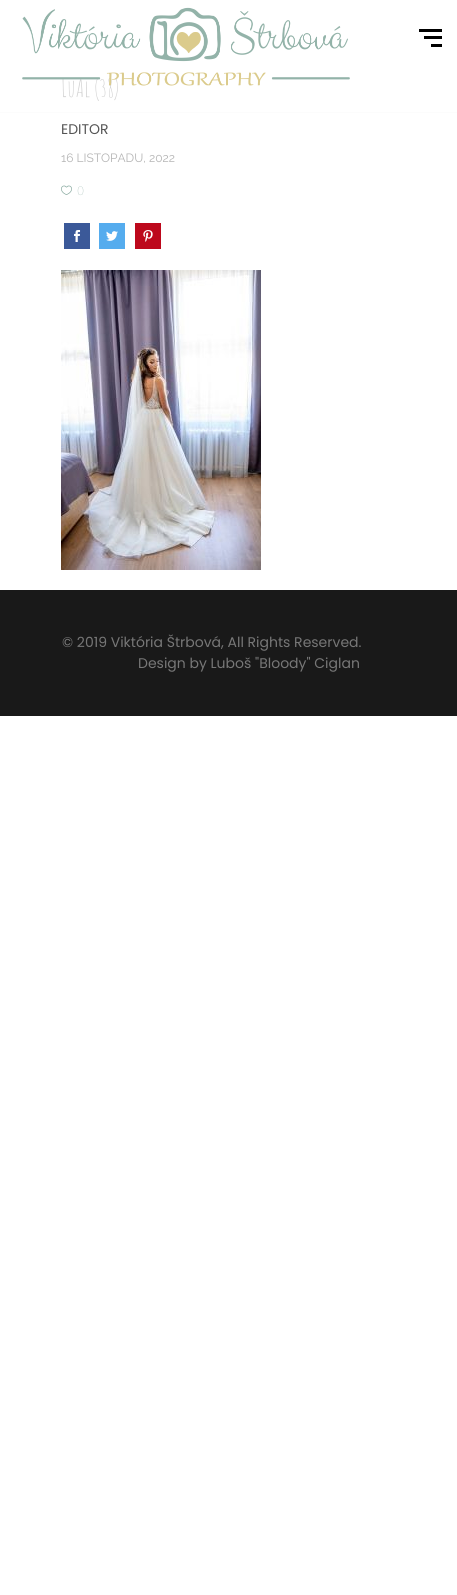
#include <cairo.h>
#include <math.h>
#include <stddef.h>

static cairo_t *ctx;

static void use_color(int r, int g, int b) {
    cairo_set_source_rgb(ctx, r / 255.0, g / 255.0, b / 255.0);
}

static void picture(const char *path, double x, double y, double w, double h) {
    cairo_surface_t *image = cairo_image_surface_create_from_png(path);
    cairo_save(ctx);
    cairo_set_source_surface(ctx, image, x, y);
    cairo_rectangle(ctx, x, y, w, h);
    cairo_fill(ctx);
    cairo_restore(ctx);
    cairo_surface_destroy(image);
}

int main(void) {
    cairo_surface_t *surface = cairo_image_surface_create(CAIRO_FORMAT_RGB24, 457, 1595);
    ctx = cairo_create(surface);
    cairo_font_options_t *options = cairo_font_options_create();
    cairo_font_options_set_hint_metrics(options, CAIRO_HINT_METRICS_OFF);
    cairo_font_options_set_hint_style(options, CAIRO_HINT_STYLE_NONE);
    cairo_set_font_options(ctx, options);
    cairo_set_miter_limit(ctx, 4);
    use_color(255, 255, 255);
    cairo_paint(ctx);
    use_color(252, 252, 252);
    cairo_rectangle(ctx, 0, 112, 457, 1);
    cairo_fill(ctx);
    cairo_select_font_face(ctx, "Amatic SC", CAIRO_FONT_SLANT_NORMAL, CAIRO_FONT_WEIGHT_NORMAL);
    cairo_set_font_size(ctx, 24);
    use_color(209, 209, 209);
    cairo_move_to(ctx, 61, 97);
    cairo_show_text(ctx, "LuAl (38)");
    picture("img1.png", 22, 7, 328, 79);
    use_color(0, 0, 0);
    cairo_rectangle(ctx, 424, 36, 18, 3);
    cairo_fill(ctx);
    cairo_rectangle(ctx, 419, 29, 23, 3);
    cairo_fill(ctx);
    cairo_rectangle(ctx, 431, 44, 11, 3);
    cairo_fill(ctx);
    cairo_select_font_face(ctx, "Poppins", CAIRO_FONT_SLANT_NORMAL, CAIRO_FONT_WEIGHT_NORMAL);
    cairo_set_font_size(ctx, 14);
    use_color(85, 85, 85);
    cairo_move_to(ctx, 61, 134);
    cairo_show_text(ctx, "EDITOR");
    cairo_select_font_face(ctx, "Raleway", CAIRO_FONT_SLANT_NORMAL, CAIRO_FONT_WEIGHT_NORMAL);
    cairo_set_font_size(ctx, 12);
    use_color(180, 180, 180);
    cairo_move_to(ctx, 61, 162);
    cairo_show_text(ctx, "16 LISTOPADU, 2022");
    picture("img2.png", 61, 185, 11, 10);
    cairo_select_font_face(ctx, "Poppins Thin", CAIRO_FONT_SLANT_NORMAL, CAIRO_FONT_WEIGHT_NORMAL);
    use_color(134, 168, 158);
    cairo_move_to(ctx, 77, 195);
    cairo_show_text(ctx, "0");
    use_color(59, 89, 153);
    cairo_rectangle(ctx, 64, 223, 26, 26);
    cairo_fill(ctx);
    picture("img3.png", 74, 230, 7, 12);
    use_color(85, 172, 238);
    cairo_rectangle(ctx, 99, 223, 26, 26);
    cairo_fill(ctx);
    picture("img4.png", 106, 231, 12, 10);
    use_color(189, 8, 28);
    cairo_rectangle(ctx, 135, 223, 26, 26);
    cairo_fill(ctx);
    picture("img5.png", 143, 230, 10, 12);
    picture("img6.png", 61, 270, 200, 300);
    use_color(25, 25, 25);
    cairo_rectangle(ctx, 0, 590, 457, 126);
    cairo_fill(ctx);
    cairo_select_font_face(ctx, "Poppins", CAIRO_FONT_SLANT_NORMAL, CAIRO_FONT_WEIGHT_NORMAL);
    cairo_set_font_size(ctx, 14);
    use_color(119, 119, 119);
    cairo_move_to(ctx, 62, 647);
    cairo_show_text(ctx, "© 2019 Viktória Štrbová, All Rights Reserved.");
    cairo_move_to(ctx, 138, 668);
    cairo_show_text(ctx, "Design by Luboš \"Bloody\" Ciglan");
    cairo_surface_write_to_png(surface, "result.png");
    cairo_font_options_destroy(options);
    cairo_destroy(ctx);
    cairo_surface_destroy(surface);
    return 0;
}
